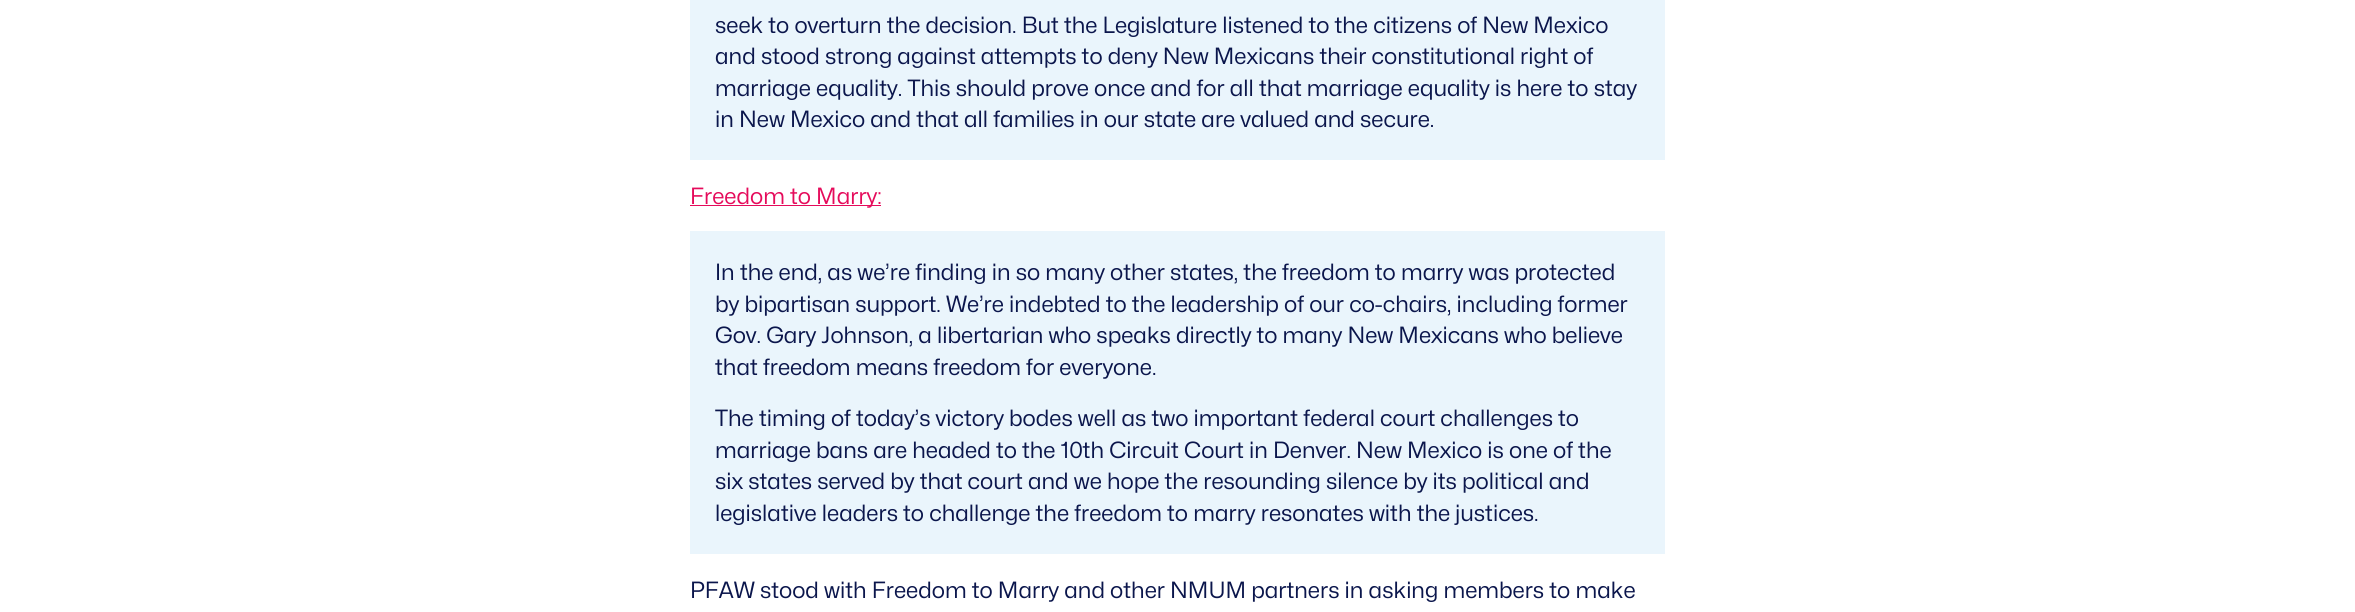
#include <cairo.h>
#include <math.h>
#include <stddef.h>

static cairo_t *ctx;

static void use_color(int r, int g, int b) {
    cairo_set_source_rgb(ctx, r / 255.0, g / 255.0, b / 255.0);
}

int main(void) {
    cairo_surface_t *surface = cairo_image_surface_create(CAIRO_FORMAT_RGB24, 2355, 612);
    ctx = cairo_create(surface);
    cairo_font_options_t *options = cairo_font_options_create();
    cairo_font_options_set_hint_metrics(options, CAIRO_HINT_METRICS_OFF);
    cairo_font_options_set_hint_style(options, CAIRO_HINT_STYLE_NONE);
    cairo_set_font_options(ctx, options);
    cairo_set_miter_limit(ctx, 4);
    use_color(255, 255, 255);
    cairo_paint(ctx);
    use_color(234, 245, 252);
    cairo_rectangle(ctx, 690, 0, 975, 160);
    cairo_fill(ctx);
    cairo_select_font_face(ctx, "Mona Sans", CAIRO_FONT_SLANT_NORMAL, CAIRO_FONT_WEIGHT_NORMAL);
    cairo_set_font_size(ctx, 22.5);
    use_color(11, 22, 76);
    cairo_move_to(ctx, 715, 33);
    cairo_show_text(ctx, "seek to overturn the decision. But the Legislature listened to the citizens of New Mexico");
    cairo_move_to(ctx, 715, 64);
    cairo_show_text(ctx, "and stood strong against attempts to deny New Mexicans their constitutional right of");
    cairo_move_to(ctx, 715, 96);
    cairo_show_text(ctx, "marriage equality. This should prove once and for all that marriage equality is here to stay");
    cairo_move_to(ctx, 715, 127);
    cairo_show_text(ctx, "in New Mexico and that all families in our state are valued and secure.");
    use_color(229, 11, 91);
    cairo_rectangle(ctx, 690, 205, 191, 1);
    cairo_fill(ctx);
    cairo_move_to(ctx, 690, 204);
    cairo_show_text(ctx, "Freedom to Marry:");
    use_color(234, 245, 252);
    cairo_rectangle(ctx, 690, 231, 975, 323);
    cairo_fill(ctx);
    use_color(11, 22, 76);
    cairo_move_to(ctx, 715, 280);
    cairo_show_text(ctx, "In the end, as we’re finding in so many other states, the freedom to marry was protected");
    cairo_move_to(ctx, 715, 312);
    cairo_show_text(ctx, "by bipartisan support. We’re indebted to the leadership of our co-chairs, including former");
    cairo_move_to(ctx, 715, 343);
    cairo_show_text(ctx, "Gov. Gary Johnson, a libertarian who speaks directly to many New Mexicans who believe");
    cairo_move_to(ctx, 715, 375);
    cairo_show_text(ctx, "that freedom means freedom for everyone.");
    cairo_move_to(ctx, 715, 426);
    cairo_show_text(ctx, "The timing of today’s victory bodes well as two important federal court challenges to");
    cairo_move_to(ctx, 715, 458);
    cairo_show_text(ctx, "marriage bans are headed to the 10th Circuit Court in Denver. New Mexico is one of the");
    cairo_move_to(ctx, 715, 489);
    cairo_show_text(ctx, "six states served by that court and we hope the resounding silence by its political and");
    cairo_move_to(ctx, 715, 521);
    cairo_show_text(ctx, "legislative leaders to challenge the freedom to marry resonates with the justices.");
    cairo_move_to(ctx, 690, 598);
    cairo_show_text(ctx, "PFAW stood with Freedom to Marry and other NMUM partners in asking members to make");
    cairo_surface_write_to_png(surface, "result.png");
    cairo_font_options_destroy(options);
    cairo_destroy(ctx);
    cairo_surface_destroy(surface);
    return 0;
}
